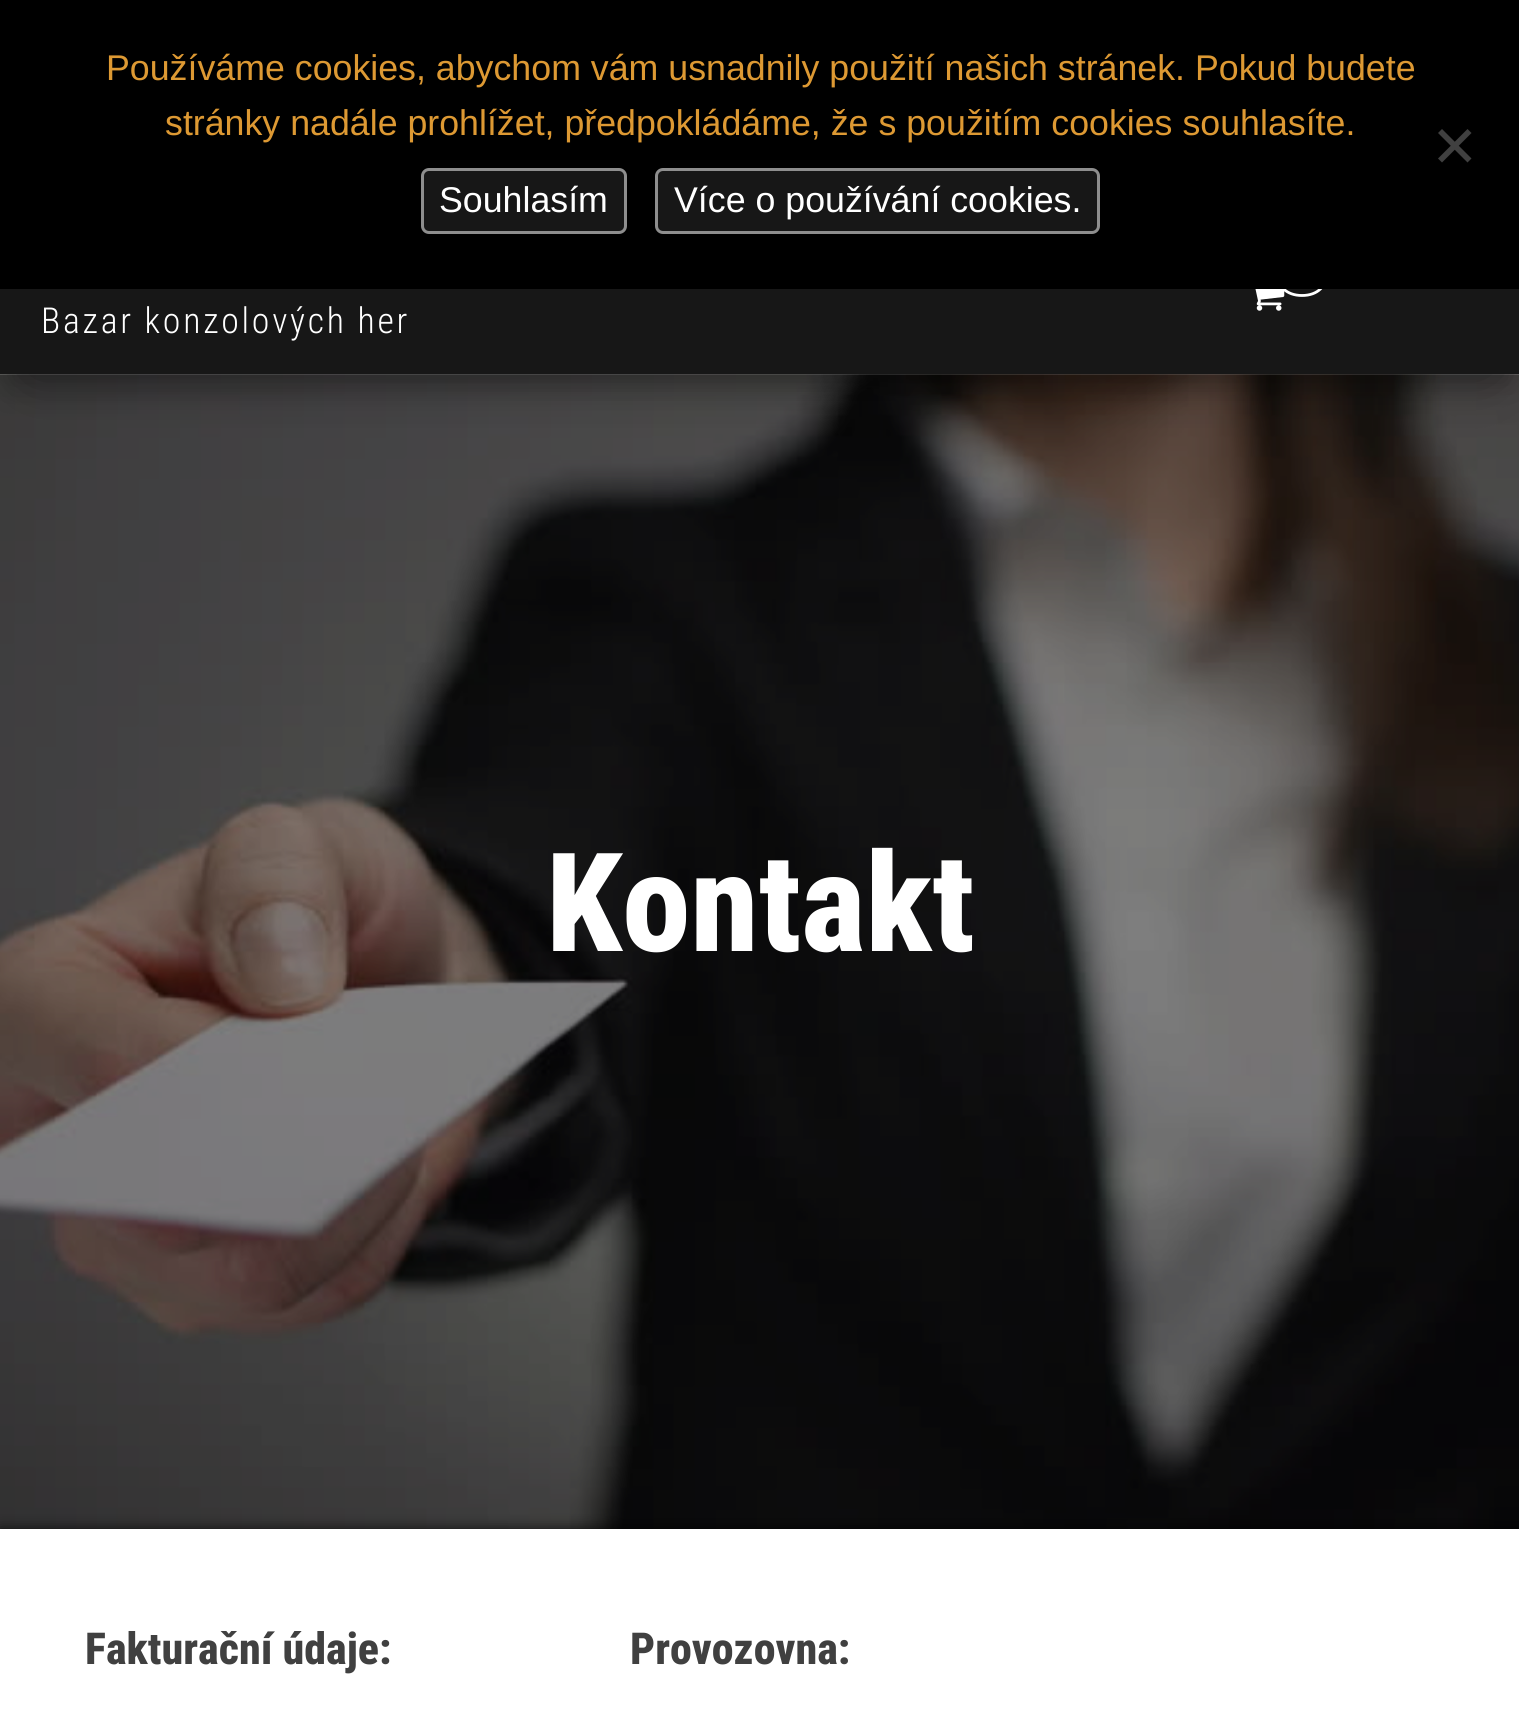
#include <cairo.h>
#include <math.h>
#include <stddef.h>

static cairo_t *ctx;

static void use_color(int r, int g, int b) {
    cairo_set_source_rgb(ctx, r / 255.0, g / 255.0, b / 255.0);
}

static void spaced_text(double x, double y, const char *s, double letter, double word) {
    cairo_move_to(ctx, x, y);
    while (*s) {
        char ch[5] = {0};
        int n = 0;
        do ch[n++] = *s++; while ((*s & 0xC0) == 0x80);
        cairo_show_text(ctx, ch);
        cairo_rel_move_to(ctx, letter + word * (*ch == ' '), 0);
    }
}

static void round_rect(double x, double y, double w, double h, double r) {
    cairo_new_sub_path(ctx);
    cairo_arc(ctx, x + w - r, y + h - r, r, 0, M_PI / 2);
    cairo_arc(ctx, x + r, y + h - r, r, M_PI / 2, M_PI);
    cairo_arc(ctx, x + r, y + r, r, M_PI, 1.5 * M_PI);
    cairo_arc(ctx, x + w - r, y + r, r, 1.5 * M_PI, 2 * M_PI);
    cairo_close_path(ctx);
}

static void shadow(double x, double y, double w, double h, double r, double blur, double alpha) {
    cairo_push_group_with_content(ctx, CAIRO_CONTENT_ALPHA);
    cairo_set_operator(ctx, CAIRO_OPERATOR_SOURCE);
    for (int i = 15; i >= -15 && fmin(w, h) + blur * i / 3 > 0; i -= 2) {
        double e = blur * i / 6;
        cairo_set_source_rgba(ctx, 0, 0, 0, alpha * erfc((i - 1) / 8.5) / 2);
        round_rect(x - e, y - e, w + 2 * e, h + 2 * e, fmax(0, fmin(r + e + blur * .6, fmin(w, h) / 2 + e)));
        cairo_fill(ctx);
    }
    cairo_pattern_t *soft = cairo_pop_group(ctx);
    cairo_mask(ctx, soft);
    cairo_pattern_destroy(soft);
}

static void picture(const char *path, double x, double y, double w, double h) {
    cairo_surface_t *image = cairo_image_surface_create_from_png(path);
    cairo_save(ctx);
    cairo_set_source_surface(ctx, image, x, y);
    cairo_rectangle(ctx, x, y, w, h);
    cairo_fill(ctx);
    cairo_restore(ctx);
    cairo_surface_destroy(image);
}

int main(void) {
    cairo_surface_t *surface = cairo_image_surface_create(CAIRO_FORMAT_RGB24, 1519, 1721);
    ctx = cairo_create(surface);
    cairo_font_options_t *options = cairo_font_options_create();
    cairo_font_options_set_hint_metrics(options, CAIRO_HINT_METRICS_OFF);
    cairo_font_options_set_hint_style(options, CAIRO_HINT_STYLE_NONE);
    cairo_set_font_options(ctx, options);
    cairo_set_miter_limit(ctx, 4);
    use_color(255, 255, 255);
    cairo_paint(ctx);
    picture("img2.png", 0, 374, 1519, 1155);
    use_color(0, 0, 0);
    shadow(14, 36, 1493, 346, 0, 14, 0.2);
    shadow(0, 8, 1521, 374, 0, 27.5, 0.12);
    shadow(33, 61, 1455, 308, 0, 27.5, 0.42);
    use_color(23, 23, 23);
    cairo_rectangle(ctx, 0, 289, 1519, 85);
    cairo_fill(ctx);
    picture("img1.png", 1255, 289, 30, 22);
    cairo_new_path(ctx);
    cairo_move_to(ctx, 1302, 254.5);
    cairo_curve_to(ctx, 1334.5, 254.5, 1334.5, 295.5, 1302, 295.5);
    cairo_curve_to(ctx, 1269.5, 295.5, 1269.5, 254.5, 1302, 254.5);
    cairo_close_path(ctx);
    use_color(255, 255, 255);
    cairo_set_line_width(ctx, 2.8);
    cairo_stroke(ctx);
    use_color(0, 0, 0);
    cairo_rectangle(ctx, 0, 0, 1519, 289);
    cairo_fill(ctx);
    cairo_select_font_face(ctx, "Liberation Sans", CAIRO_FONT_SLANT_NORMAL, CAIRO_FONT_WEIGHT_NORMAL);
    cairo_set_font_size(ctx, 35.75);
    use_color(221, 153, 51);
    cairo_move_to(ctx, 106, 80);
    cairo_show_text(ctx, "Používáme cookies, abychom vám usnadnily použití našich stránek. Pokud budete");
    cairo_move_to(ctx, 165, 135);
    cairo_show_text(ctx, "stránky nadále prohlížet, předpokládáme, že s použitím cookies souhlasíte.");
    use_color(64, 64, 64);
    cairo_new_path(ctx);
    cairo_move_to(ctx, 1467.5, 129);
    cairo_line_to(ctx, 1471.5, 133);
    cairo_line_to(ctx, 1442, 162.5);
    cairo_line_to(ctx, 1438, 158.5);
    cairo_close_path(ctx);
    cairo_fill(ctx);
    cairo_new_path(ctx);
    cairo_move_to(ctx, 1438, 133);
    cairo_line_to(ctx, 1442, 129);
    cairo_line_to(ctx, 1471.5, 158.5);
    cairo_line_to(ctx, 1467.5, 162.5);
    cairo_close_path(ctx);
    cairo_fill(ctx);
    use_color(23, 23, 23);
    round_rect(422.5, 169.5, 203, 63, 6.5);
    cairo_fill_preserve(ctx);
    use_color(142, 142, 142);
    cairo_set_line_width(ctx, 3);
    cairo_stroke(ctx);
    use_color(255, 255, 255);
    cairo_move_to(ctx, 439, 212);
    cairo_show_text(ctx, "Souhlasím");
    use_color(23, 23, 23);
    round_rect(656.5, 169.5, 442, 63, 6.5);
    cairo_fill_preserve(ctx);
    use_color(142, 142, 142);
    cairo_stroke(ctx);
    use_color(255, 255, 255);
    cairo_move_to(ctx, 674, 212);
    cairo_show_text(ctx, "Více o používání cookies.");
    cairo_select_font_face(ctx, "Roboto Condensed Light", CAIRO_FONT_SLANT_NORMAL, CAIRO_FONT_WEIGHT_NORMAL);
    spaced_text(41, 333, "Bazar konzolových her", 2.75, 0);
    cairo_select_font_face(ctx, "Roboto Condensed ExtraBold", CAIRO_FONT_SLANT_NORMAL, CAIRO_FONT_WEIGHT_NORMAL);
    cairo_set_font_size(ctx, 137.5);
    cairo_move_to(ctx, 546, 951);
    cairo_show_text(ctx, "Kontakt");
    use_color(0, 0, 0);
    shadow(0, 1529, 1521, 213, 0, 7, 0.75);
    use_color(255, 255, 255);
    cairo_rectangle(ctx, 0, 1529, 1519, 192);
    cairo_fill(ctx);
    cairo_set_font_size(ctx, 44);
    use_color(64, 64, 64);
    cairo_move_to(ctx, 85, 1664);
    cairo_show_text(ctx, "Fakturační údaje:");
    cairo_move_to(ctx, 630, 1664);
    cairo_show_text(ctx, "Provozovna:");
    cairo_surface_write_to_png(surface, "result.png");
    cairo_font_options_destroy(options);
    cairo_destroy(ctx);
    cairo_surface_destroy(surface);
    return 0;
}
